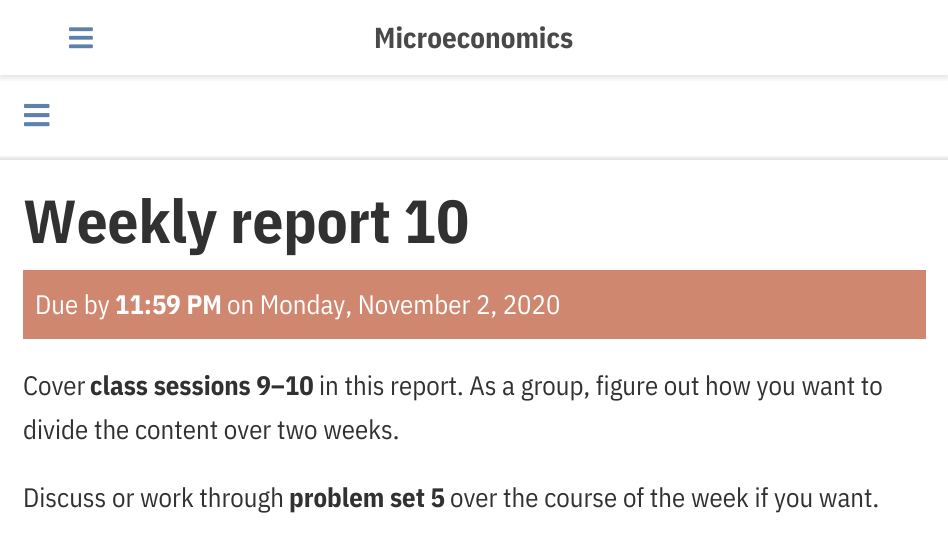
#include <cairo.h>
#include <math.h>
#include <stddef.h>

static cairo_t *ctx;

static void use_color(int r, int g, int b) {
    cairo_set_source_rgb(ctx, r / 255.0, g / 255.0, b / 255.0);
}

static void round_rect(double x, double y, double w, double h, double r) {
    cairo_new_sub_path(ctx);
    cairo_arc(ctx, x + w - r, y + h - r, r, 0, M_PI / 2);
    cairo_arc(ctx, x + r, y + h - r, r, M_PI / 2, M_PI);
    cairo_arc(ctx, x + r, y + r, r, M_PI, 1.5 * M_PI);
    cairo_arc(ctx, x + w - r, y + r, r, 1.5 * M_PI, 2 * M_PI);
    cairo_close_path(ctx);
}

static void shadow(double x, double y, double w, double h, double r, double blur, double alpha) {
    cairo_push_group_with_content(ctx, CAIRO_CONTENT_ALPHA);
    cairo_set_operator(ctx, CAIRO_OPERATOR_SOURCE);
    for (int i = 15; i >= -15 && fmin(w, h) + blur * i / 3 > 0; i -= 2) {
        double e = blur * i / 6;
        cairo_set_source_rgba(ctx, 0, 0, 0, alpha * erfc((i - 1) / 8.5) / 2);
        round_rect(x - e, y - e, w + 2 * e, h + 2 * e, fmax(0, fmin(r + e + blur * .6, fmin(w, h) / 2 + e)));
        cairo_fill(ctx);
    }
    cairo_pattern_t *soft = cairo_pop_group(ctx);
    cairo_mask(ctx, soft);
    cairo_pattern_destroy(soft);
}

static void picture(const char *path, double x, double y, double w, double h) {
    cairo_surface_t *image = cairo_image_surface_create_from_png(path);
    cairo_save(ctx);
    cairo_set_source_surface(ctx, image, x, y);
    cairo_rectangle(ctx, x, y, w, h);
    cairo_fill(ctx);
    cairo_restore(ctx);
    cairo_surface_destroy(image);
}

int main(void) {
    cairo_surface_t *surface = cairo_image_surface_create(CAIRO_FORMAT_RGB24, 948, 545);
    ctx = cairo_create(surface);
    cairo_font_options_t *options = cairo_font_options_create();
    cairo_font_options_set_hint_metrics(options, CAIRO_HINT_METRICS_OFF);
    cairo_font_options_set_hint_style(options, CAIRO_HINT_STYLE_NONE);
    cairo_set_font_options(ctx, options);
    cairo_set_miter_limit(ctx, 4);
    use_color(255, 255, 255);
    cairo_paint(ctx);
    cairo_save(ctx);
    cairo_rectangle(ctx, 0, 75, 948, 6);
    cairo_clip(ctx);
    use_color(0, 0, 0);
    shadow(0, 3, 948, 75, 0, 3, 0.11);
    cairo_restore(ctx);
    picture("img1.png", 69, 27, 24, 22);
    cairo_select_font_face(ctx, "IBM Plex Sans Condensed", CAIRO_FONT_SLANT_NORMAL, CAIRO_FONT_WEIGHT_BOLD);
    cairo_set_font_size(ctx, 29);
    use_color(73, 73, 73);
    cairo_move_to(ctx, 374, 48);
    cairo_show_text(ctx, "Microeconomics");
    use_color(230, 230, 230);
    cairo_rectangle(ctx, 0, 158, 948, 2);
    cairo_fill(ctx);
    use_color(242, 242, 242);
    cairo_rectangle(ctx, 0, 156, 948, 2);
    cairo_fill(ctx);
    picture("img2.png", 24, 103, 26, 24);
    cairo_set_font_size(ctx, 60.75);
    use_color(49, 49, 49);
    cairo_move_to(ctx, 23, 243);
    cairo_show_text(ctx, "Weekly report 10");
    use_color(208, 135, 112);
    cairo_rectangle(ctx, 23, 270, 903, 69);
    cairo_fill(ctx);
    cairo_select_font_face(ctx, "IBM Plex Sans Condensed", CAIRO_FONT_SLANT_NORMAL, CAIRO_FONT_WEIGHT_NORMAL);
    cairo_set_font_size(ctx, 26.7);
    use_color(255, 255, 255);
    cairo_move_to(ctx, 35, 314);
    cairo_show_text(ctx, "Due by");
    cairo_select_font_face(ctx, "IBM Plex Sans Condensed", CAIRO_FONT_SLANT_NORMAL, CAIRO_FONT_WEIGHT_BOLD);
    cairo_move_to(ctx, 115, 314);
    cairo_show_text(ctx, "11:59 PM");
    cairo_select_font_face(ctx, "IBM Plex Sans Condensed", CAIRO_FONT_SLANT_NORMAL, CAIRO_FONT_WEIGHT_NORMAL);
    cairo_move_to(ctx, 227, 314);
    cairo_show_text(ctx, "on Monday, November 2, 2020");
    use_color(49, 49, 49);
    cairo_move_to(ctx, 23, 395);
    cairo_show_text(ctx, "Cover");
    cairo_select_font_face(ctx, "IBM Plex Sans Condensed", CAIRO_FONT_SLANT_NORMAL, CAIRO_FONT_WEIGHT_BOLD);
    cairo_move_to(ctx, 90, 395);
    cairo_show_text(ctx, "class sessions 9–10");
    cairo_select_font_face(ctx, "IBM Plex Sans Condensed", CAIRO_FONT_SLANT_NORMAL, CAIRO_FONT_WEIGHT_NORMAL);
    cairo_move_to(ctx, 319, 395);
    cairo_show_text(ctx, "in this report. As a group, figure out how you want to");
    cairo_move_to(ctx, 23, 439);
    cairo_show_text(ctx, "divide the content over two weeks.");
    cairo_move_to(ctx, 23, 507);
    cairo_show_text(ctx, "Discuss or work through");
    cairo_select_font_face(ctx, "IBM Plex Sans Condensed", CAIRO_FONT_SLANT_NORMAL, CAIRO_FONT_WEIGHT_BOLD);
    cairo_move_to(ctx, 289, 507);
    cairo_show_text(ctx, "problem set 5");
    cairo_select_font_face(ctx, "IBM Plex Sans Condensed", CAIRO_FONT_SLANT_NORMAL, CAIRO_FONT_WEIGHT_NORMAL);
    cairo_move_to(ctx, 450, 507);
    cairo_show_text(ctx, "over the course of the week if you want.");
    cairo_surface_write_to_png(surface, "result.png");
    cairo_font_options_destroy(options);
    cairo_destroy(ctx);
    cairo_surface_destroy(surface);
    return 0;
}
